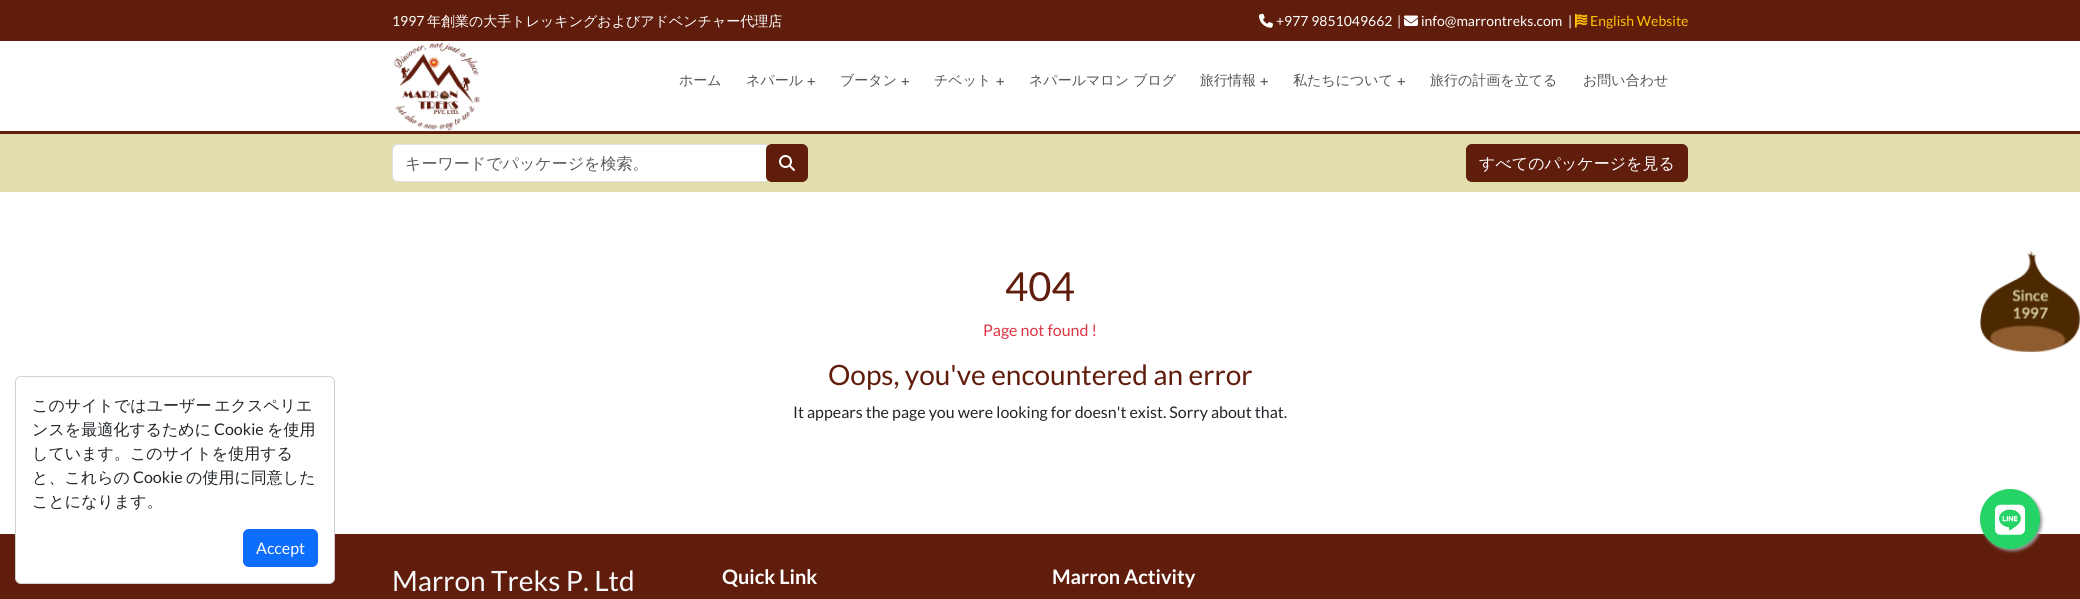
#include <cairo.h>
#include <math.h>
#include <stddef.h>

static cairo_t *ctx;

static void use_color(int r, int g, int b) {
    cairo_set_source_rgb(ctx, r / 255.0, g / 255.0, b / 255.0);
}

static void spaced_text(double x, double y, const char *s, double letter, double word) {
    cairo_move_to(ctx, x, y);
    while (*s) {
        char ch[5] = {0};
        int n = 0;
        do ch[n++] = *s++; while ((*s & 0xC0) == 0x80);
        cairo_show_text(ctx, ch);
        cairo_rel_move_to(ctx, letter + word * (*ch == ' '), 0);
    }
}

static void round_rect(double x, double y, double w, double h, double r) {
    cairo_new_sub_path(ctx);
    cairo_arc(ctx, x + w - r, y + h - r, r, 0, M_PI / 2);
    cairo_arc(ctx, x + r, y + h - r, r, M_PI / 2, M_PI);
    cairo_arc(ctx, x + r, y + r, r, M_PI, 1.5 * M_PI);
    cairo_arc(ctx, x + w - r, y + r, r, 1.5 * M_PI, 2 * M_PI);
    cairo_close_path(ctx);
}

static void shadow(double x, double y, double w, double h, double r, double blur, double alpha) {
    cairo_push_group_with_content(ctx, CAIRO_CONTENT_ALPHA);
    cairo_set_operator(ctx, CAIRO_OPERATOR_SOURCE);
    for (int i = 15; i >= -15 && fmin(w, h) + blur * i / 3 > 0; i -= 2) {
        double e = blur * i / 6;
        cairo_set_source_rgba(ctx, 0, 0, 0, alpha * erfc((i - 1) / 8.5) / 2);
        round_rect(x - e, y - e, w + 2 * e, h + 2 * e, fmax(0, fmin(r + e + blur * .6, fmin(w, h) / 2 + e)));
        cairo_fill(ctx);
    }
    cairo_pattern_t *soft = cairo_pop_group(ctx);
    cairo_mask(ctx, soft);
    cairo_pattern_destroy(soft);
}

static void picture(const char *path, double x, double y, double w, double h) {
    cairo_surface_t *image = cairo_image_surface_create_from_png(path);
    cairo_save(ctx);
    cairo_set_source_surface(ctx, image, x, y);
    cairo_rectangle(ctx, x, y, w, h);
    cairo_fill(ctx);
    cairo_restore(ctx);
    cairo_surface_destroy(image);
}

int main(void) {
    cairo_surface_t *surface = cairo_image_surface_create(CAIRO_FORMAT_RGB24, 2080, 599);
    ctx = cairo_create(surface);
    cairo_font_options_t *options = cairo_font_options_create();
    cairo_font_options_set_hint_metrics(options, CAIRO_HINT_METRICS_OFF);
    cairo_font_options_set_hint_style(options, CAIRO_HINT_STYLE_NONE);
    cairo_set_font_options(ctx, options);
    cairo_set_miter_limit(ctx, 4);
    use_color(255, 255, 255);
    cairo_paint(ctx);
    use_color(96, 29, 12);
    cairo_rectangle(ctx, 0, 534, 2080, 65);
    cairo_fill(ctx);
    use_color(255, 255, 255);
    round_rect(15, 376, 320, 208, 6);
    cairo_fill(ctx);
    round_rect(15.5, 376.5, 319, 207, 5.5);
    cairo_set_source_rgba(ctx, 0, 0, 0, 0.18);
    cairo_set_line_width(ctx, 1);
    cairo_stroke(ctx);
    cairo_select_font_face(ctx, "WenQuanYi Zen Hei Medium", CAIRO_FONT_SLANT_NORMAL, CAIRO_FONT_WEIGHT_NORMAL);
    cairo_set_font_size(ctx, 16);
    use_color(33, 37, 41);
    spaced_text(32, 411, "このサイトではユーザー エクスペリエ", 0, -2);
    cairo_move_to(ctx, 32, 435);
    cairo_show_text(ctx, "ンスを最適化するために");
    cairo_select_font_face(ctx, "Lato", CAIRO_FONT_SLANT_NORMAL, CAIRO_FONT_WEIGHT_NORMAL);
    cairo_move_to(ctx, 214, 435);
    cairo_show_text(ctx, "Cookie");
    cairo_select_font_face(ctx, "WenQuanYi Zen Hei Medium", CAIRO_FONT_SLANT_NORMAL, CAIRO_FONT_WEIGHT_NORMAL);
    cairo_move_to(ctx, 267, 435);
    cairo_show_text(ctx, "を使用");
    cairo_move_to(ctx, 32, 459);
    cairo_show_text(ctx, "しています。このサイトを使用する");
    cairo_move_to(ctx, 32, 483);
    cairo_show_text(ctx, "と、これらの");
    cairo_select_font_face(ctx, "Lato", CAIRO_FONT_SLANT_NORMAL, CAIRO_FONT_WEIGHT_NORMAL);
    cairo_move_to(ctx, 133, 483);
    cairo_show_text(ctx, "Cookie");
    cairo_select_font_face(ctx, "WenQuanYi Zen Hei Medium", CAIRO_FONT_SLANT_NORMAL, CAIRO_FONT_WEIGHT_NORMAL);
    cairo_move_to(ctx, 186, 483);
    cairo_show_text(ctx, "の使用に同意した");
    cairo_move_to(ctx, 32, 507);
    cairo_show_text(ctx, "ことになります。");
    use_color(13, 110, 253);
    round_rect(243.5, 529.5, 74, 37, 5.5);
    cairo_fill_preserve(ctx);
    cairo_stroke(ctx);
    cairo_select_font_face(ctx, "Lato", CAIRO_FONT_SLANT_NORMAL, CAIRO_FONT_WEIGHT_NORMAL);
    use_color(255, 255, 255);
    cairo_move_to(ctx, 256, 554);
    cairo_show_text(ctx, "Accept");
    use_color(96, 29, 12);
    cairo_rectangle(ctx, 0, 0, 2080, 41);
    cairo_fill(ctx);
    cairo_set_font_size(ctx, 14);
    use_color(255, 255, 255);
    cairo_move_to(ctx, 392, 26);
    cairo_show_text(ctx, "1997");
    cairo_select_font_face(ctx, "WenQuanYi Zen Hei Medium", CAIRO_FONT_SLANT_NORMAL, CAIRO_FONT_WEIGHT_NORMAL);
    cairo_move_to(ctx, 427, 26);
    cairo_show_text(ctx, "年創業の大手トレッキングおよびアドベンチャー代理店");
    picture("img1.png", 1259, 13, 14, 15);
    cairo_select_font_face(ctx, "Lato", CAIRO_FONT_SLANT_NORMAL, CAIRO_FONT_WEIGHT_NORMAL);
    cairo_move_to(ctx, 1276, 26);
    cairo_show_text(ctx, "+977 9851049662");
    cairo_move_to(ctx, 1397, 26);
    cairo_show_text(ctx, "|");
    picture("img2.png", 1404, 15, 14, 11);
    cairo_move_to(ctx, 1421, 26);
    cairo_show_text(ctx, "info@marrontreks.com");
    cairo_move_to(ctx, 1568, 26);
    cairo_show_text(ctx, "|");
    picture("img3.png", 1575, 13, 13, 15);
    use_color(255, 193, 7);
    cairo_move_to(ctx, 1590, 26);
    cairo_show_text(ctx, "English Website");
    use_color(96, 29, 12);
    cairo_rectangle(ctx, 0, 131, 2080, 3);
    cairo_fill(ctx);
    picture("img4.png", 393, 42, 88, 89);
    cairo_select_font_face(ctx, "WenQuanYi Zen Hei Medium", CAIRO_FONT_SLANT_NORMAL, CAIRO_FONT_WEIGHT_NORMAL);
    use_color(85, 85, 85);
    cairo_move_to(ctx, 679, 85);
    cairo_show_text(ctx, "ホーム");
    cairo_move_to(ctx, 746, 85);
    cairo_show_text(ctx, "ネパール");
    cairo_select_font_face(ctx, "DejaVu Sans Mono", CAIRO_FONT_SLANT_NORMAL, CAIRO_FONT_WEIGHT_NORMAL);
    cairo_move_to(ctx, 807, 86);
    cairo_show_text(ctx, "+");
    cairo_select_font_face(ctx, "WenQuanYi Zen Hei Medium", CAIRO_FONT_SLANT_NORMAL, CAIRO_FONT_WEIGHT_NORMAL);
    cairo_move_to(ctx, 840, 85);
    cairo_show_text(ctx, "ブータン");
    cairo_select_font_face(ctx, "DejaVu Sans Mono", CAIRO_FONT_SLANT_NORMAL, CAIRO_FONT_WEIGHT_NORMAL);
    cairo_move_to(ctx, 901, 86);
    cairo_show_text(ctx, "+");
    cairo_select_font_face(ctx, "WenQuanYi Zen Hei Medium", CAIRO_FONT_SLANT_NORMAL, CAIRO_FONT_WEIGHT_NORMAL);
    cairo_move_to(ctx, 934, 85);
    cairo_show_text(ctx, "チベット");
    cairo_select_font_face(ctx, "DejaVu Sans Mono", CAIRO_FONT_SLANT_NORMAL, CAIRO_FONT_WEIGHT_NORMAL);
    cairo_move_to(ctx, 996, 86);
    cairo_show_text(ctx, "+");
    cairo_select_font_face(ctx, "WenQuanYi Zen Hei Medium", CAIRO_FONT_SLANT_NORMAL, CAIRO_FONT_WEIGHT_NORMAL);
    cairo_move_to(ctx, 1029, 85);
    cairo_show_text(ctx, "ネパールマロン ブログ");
    cairo_move_to(ctx, 1200, 85);
    cairo_show_text(ctx, "旅行情報");
    cairo_select_font_face(ctx, "DejaVu Sans Mono", CAIRO_FONT_SLANT_NORMAL, CAIRO_FONT_WEIGHT_NORMAL);
    cairo_move_to(ctx, 1260, 86);
    cairo_show_text(ctx, "+");
    cairo_select_font_face(ctx, "WenQuanYi Zen Hei Medium", CAIRO_FONT_SLANT_NORMAL, CAIRO_FONT_WEIGHT_NORMAL);
    cairo_move_to(ctx, 1293, 85);
    cairo_show_text(ctx, "私たちについて");
    cairo_select_font_face(ctx, "DejaVu Sans Mono", CAIRO_FONT_SLANT_NORMAL, CAIRO_FONT_WEIGHT_NORMAL);
    cairo_move_to(ctx, 1397, 86);
    cairo_show_text(ctx, "+");
    cairo_select_font_face(ctx, "WenQuanYi Zen Hei Medium", CAIRO_FONT_SLANT_NORMAL, CAIRO_FONT_WEIGHT_NORMAL);
    cairo_move_to(ctx, 1430, 85);
    cairo_show_text(ctx, "旅行の計画を立てる");
    cairo_move_to(ctx, 1583, 85);
    cairo_show_text(ctx, "お問い合わせ");
    use_color(226, 221, 172);
    cairo_rectangle(ctx, 0, 134, 2080, 58);
    cairo_fill(ctx);
    use_color(255, 255, 255);
    cairo_new_path(ctx);
    cairo_move_to(ctx, 398, 144.5);
    cairo_line_to(ctx, 766.5, 144.5);
    cairo_line_to(ctx, 766.5, 181.5);
    cairo_line_to(ctx, 398, 181.5);
    cairo_curve_to(ctx, 395, 181.5, 392.5, 179, 392.5, 176);
    cairo_line_to(ctx, 392.5, 150);
    cairo_curve_to(ctx, 392.5, 147, 395, 144.5, 398, 144.5);
    cairo_close_path(ctx);
    cairo_fill_preserve(ctx);
    use_color(222, 226, 230);
    cairo_stroke(ctx);
    cairo_set_font_size(ctx, 16);
    use_color(89, 92, 95);
    cairo_move_to(ctx, 405, 169);
    cairo_show_text(ctx, "キーワードでパッケージを検索。");
    use_color(96, 29, 12);
    round_rect(766.5, 144.5, 41, 37, 5.5);
    cairo_fill_preserve(ctx);
    use_color(96, 29, 10);
    cairo_stroke(ctx);
    picture("img5.png", 779, 155, 16, 16);
    use_color(96, 29, 12);
    round_rect(1466.5, 144.5, 221, 37, 5.5);
    cairo_fill_preserve(ctx);
    use_color(96, 29, 10);
    cairo_stroke(ctx);
    use_color(255, 255, 255);
    cairo_move_to(ctx, 1479, 169);
    cairo_show_text(ctx, "すべてのパッケージを見る");
    cairo_select_font_face(ctx, "Lato", CAIRO_FONT_SLANT_NORMAL, CAIRO_FONT_WEIGHT_NORMAL);
    cairo_set_font_size(ctx, 40);
    use_color(96, 29, 12);
    cairo_move_to(ctx, 1005, 301);
    cairo_show_text(ctx, "404");
    cairo_set_font_size(ctx, 16);
    use_color(220, 53, 69);
    cairo_move_to(ctx, 983, 336);
    cairo_show_text(ctx, "Page not found !");
    cairo_set_font_size(ctx, 28);
    use_color(96, 29, 12);
    cairo_move_to(ctx, 828, 385);
    cairo_show_text(ctx, "Oops, you've encountered an error");
    cairo_set_font_size(ctx, 16);
    use_color(33, 37, 41);
    cairo_move_to(ctx, 793, 418);
    cairo_show_text(ctx, "It appears the page you were looking for doesn't exist. Sorry about that.");
    picture("img6.png", 1980, 250, 100, 102);
    cairo_set_font_size(ctx, 28);
    use_color(248, 249, 250);
    cairo_move_to(ctx, 392, 591);
    cairo_show_text(ctx, "Marron Treks P. Ltd");
    cairo_select_font_face(ctx, "Lato", CAIRO_FONT_SLANT_NORMAL, CAIRO_FONT_WEIGHT_BOLD);
    cairo_set_font_size(ctx, 20);
    use_color(255, 255, 255);
    cairo_move_to(ctx, 722, 584);
    cairo_show_text(ctx, "Quick Link");
    cairo_move_to(ctx, 1052, 584);
    cairo_show_text(ctx, "Marron Activity");
    use_color(153, 153, 153);
    shadow(1982, 491, 60, 60, 30, 1.5, 1);
    use_color(37, 211, 102);
    cairo_arc(ctx, 2010, 519, 30, 0, 2 * M_PI);
    cairo_fill(ctx);
    picture("img7.png", 1995, 504, 30, 31);
    cairo_surface_write_to_png(surface, "result.png");
    cairo_font_options_destroy(options);
    cairo_destroy(ctx);
    cairo_surface_destroy(surface);
    return 0;
}
